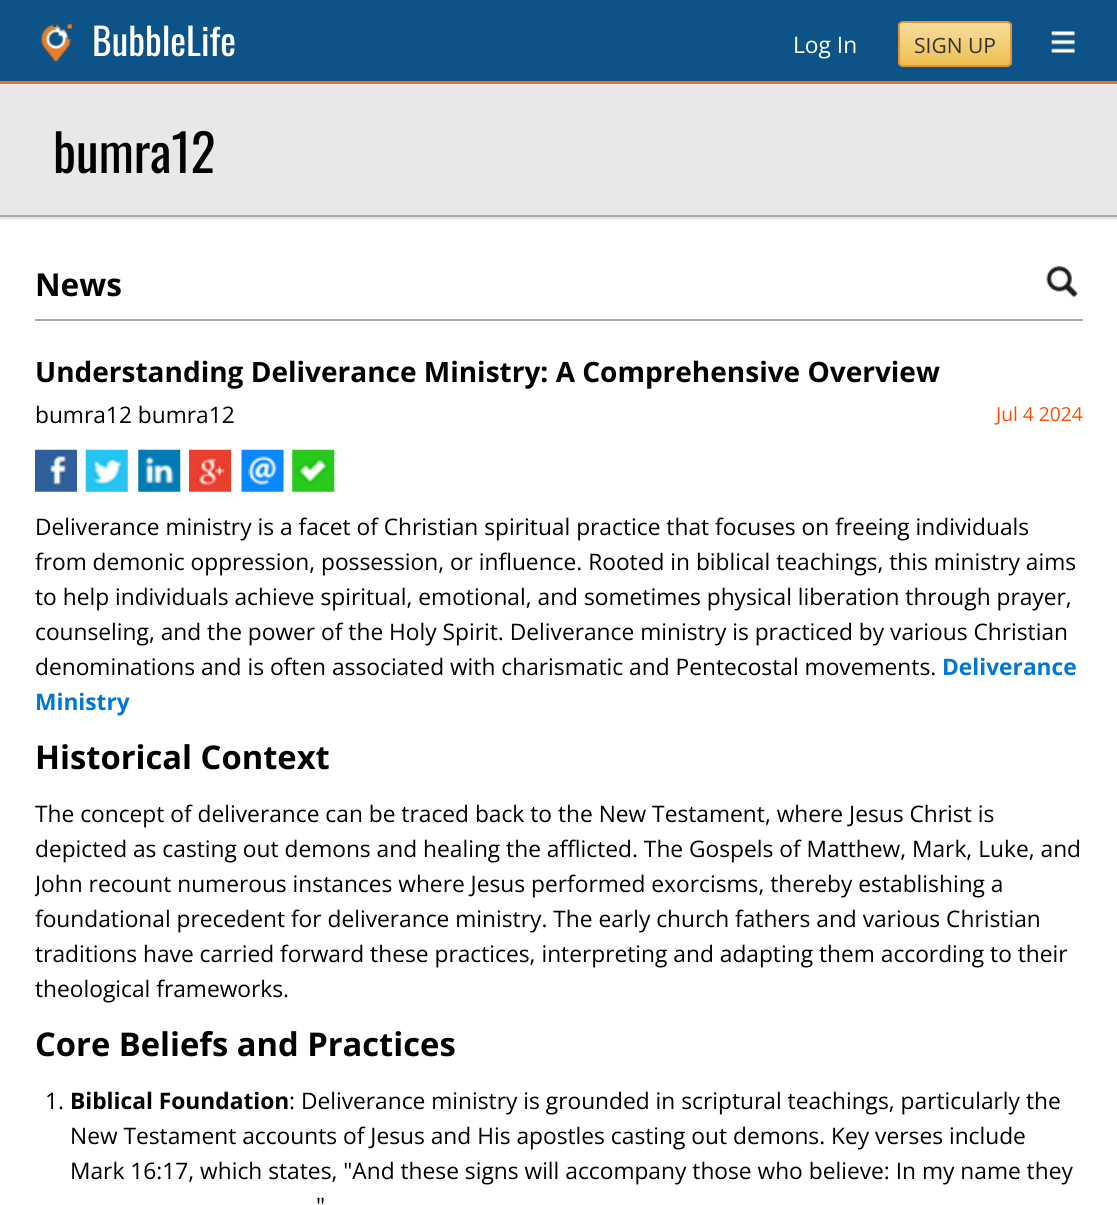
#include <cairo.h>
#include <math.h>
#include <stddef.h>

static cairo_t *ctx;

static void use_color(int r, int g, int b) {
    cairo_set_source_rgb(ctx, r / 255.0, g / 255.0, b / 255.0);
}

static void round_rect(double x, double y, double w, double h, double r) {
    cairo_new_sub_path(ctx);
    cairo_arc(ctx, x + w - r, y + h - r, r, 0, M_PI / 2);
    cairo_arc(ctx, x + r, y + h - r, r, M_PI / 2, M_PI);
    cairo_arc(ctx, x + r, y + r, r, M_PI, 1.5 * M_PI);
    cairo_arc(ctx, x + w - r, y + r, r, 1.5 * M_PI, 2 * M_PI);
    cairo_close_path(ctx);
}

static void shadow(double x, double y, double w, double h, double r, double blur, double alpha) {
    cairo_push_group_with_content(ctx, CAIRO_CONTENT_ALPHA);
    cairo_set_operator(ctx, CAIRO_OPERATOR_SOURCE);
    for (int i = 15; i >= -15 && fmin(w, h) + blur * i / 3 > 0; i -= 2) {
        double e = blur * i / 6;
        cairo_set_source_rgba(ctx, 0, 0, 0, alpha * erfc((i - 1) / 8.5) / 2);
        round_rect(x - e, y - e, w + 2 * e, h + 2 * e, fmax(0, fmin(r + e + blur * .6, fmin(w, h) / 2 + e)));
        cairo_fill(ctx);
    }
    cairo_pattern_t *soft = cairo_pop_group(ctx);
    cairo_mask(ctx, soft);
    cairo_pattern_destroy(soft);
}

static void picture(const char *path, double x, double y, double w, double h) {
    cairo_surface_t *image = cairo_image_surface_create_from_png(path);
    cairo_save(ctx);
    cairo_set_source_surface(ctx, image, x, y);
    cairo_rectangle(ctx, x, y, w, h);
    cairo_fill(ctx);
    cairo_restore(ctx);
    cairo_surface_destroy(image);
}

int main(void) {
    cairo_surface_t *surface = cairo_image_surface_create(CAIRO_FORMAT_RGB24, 1117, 1205);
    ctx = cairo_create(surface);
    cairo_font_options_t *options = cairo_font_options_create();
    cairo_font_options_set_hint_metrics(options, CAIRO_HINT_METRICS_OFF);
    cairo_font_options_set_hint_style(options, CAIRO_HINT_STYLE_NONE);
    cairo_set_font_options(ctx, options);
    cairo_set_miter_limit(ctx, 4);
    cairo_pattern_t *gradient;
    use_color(255, 255, 255);
    cairo_paint(ctx);
    use_color(14, 83, 136);
    cairo_rectangle(ctx, 0, 0, 1117, 81);
    cairo_fill(ctx);
    use_color(230, 113, 39);
    cairo_rectangle(ctx, 0, 81, 1117, 3);
    cairo_fill(ctx);
    picture("img1.png", 41, 23, 31, 39);
    cairo_select_font_face(ctx, "Oswald", CAIRO_FONT_SLANT_NORMAL, CAIRO_FONT_WEIGHT_NORMAL);
    cairo_set_font_size(ctx, 37.5);
    use_color(255, 255, 255);
    cairo_move_to(ctx, 92, 56);
    cairo_show_text(ctx, "BubbleLife");
    cairo_select_font_face(ctx, "Open Sans", CAIRO_FONT_SLANT_NORMAL, CAIRO_FONT_WEIGHT_NORMAL);
    cairo_set_font_size(ctx, 22.75);
    cairo_move_to(ctx, 793, 53);
    cairo_show_text(ctx, "Log In");
    cairo_save(ctx);
    round_rect(898, 21, 114, 46, 5);
    cairo_clip(ctx);
    gradient = cairo_pattern_create_linear(955, 23, 955, 65);
    cairo_pattern_add_color_stop_rgba(gradient, 0, 0.969, 0.867, 0.62, 1);
    cairo_pattern_add_color_stop_rgba(gradient, 1, 0.929, 0.749, 0.31, 1);
    cairo_set_source(ctx, gradient);
    cairo_pattern_destroy(gradient);
    cairo_rectangle(ctx, 898, 23, 114, 42);
    cairo_fill(ctx);
    cairo_restore(ctx);
    round_rect(899, 22, 112, 44, 4);
    use_color(223, 149, 56);
    cairo_stroke(ctx);
    cairo_set_font_size(ctx, 21);
    use_color(51, 51, 51);
    cairo_move_to(ctx, 914, 53);
    cairo_show_text(ctx, "SIGN UP");
    picture("img2.png", 1051, 31, 24, 22);
    use_color(221, 221, 221);
    shadow(0, 86, 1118, 133, 0, 1, 1);
    use_color(232, 232, 232);
    cairo_rectangle(ctx, 0, 84, 1117, 131);
    cairo_fill(ctx);
    use_color(170, 170, 170);
    cairo_rectangle(ctx, 0, 215, 1117, 2);
    cairo_fill(ctx);
    cairo_select_font_face(ctx, "Oswald", CAIRO_FONT_SLANT_NORMAL, CAIRO_FONT_WEIGHT_NORMAL);
    cairo_set_font_size(ctx, 51.5);
    use_color(0, 0, 0);
    cairo_move_to(ctx, 53, 173);
    cairo_show_text(ctx, "bumra12");
    use_color(170, 170, 170);
    cairo_rectangle(ctx, 35, 319, 1048, 2);
    cairo_fill(ctx);
    cairo_select_font_face(ctx, "Open Sans", CAIRO_FONT_SLANT_NORMAL, CAIRO_FONT_WEIGHT_BOLD);
    cairo_set_font_size(ctx, 31.5);
    use_color(0, 0, 0);
    cairo_move_to(ctx, 35, 296);
    cairo_show_text(ctx, "News");
    picture("img3.png", 1046, 266, 32, 32);
    cairo_set_font_size(ctx, 28);
    cairo_move_to(ctx, 35, 382);
    cairo_show_text(ctx, "Understanding Deliverance Ministry: A Comprehensive Overview");
    cairo_select_font_face(ctx, "Open Sans", CAIRO_FONT_SLANT_NORMAL, CAIRO_FONT_WEIGHT_NORMAL);
    cairo_set_font_size(ctx, 22.75);
    cairo_move_to(ctx, 35, 423);
    cairo_show_text(ctx, "bumra12 bumra12");
    cairo_set_font_size(ctx, 19.25);
    use_color(248, 80, 0);
    cairo_move_to(ctx, 996, 421);
    cairo_show_text(ctx, "Jul 4 2024");
    picture("img4.png", 35, 449, 42, 43);
    picture("img5.png", 85, 449, 43, 43);
    picture("img6.png", 138, 449, 43, 43);
    picture("img7.png", 189, 449, 42, 43);
    picture("img8.png", 241, 449, 43, 43);
    picture("img9.png", 292, 449, 43, 43);
    cairo_set_font_size(ctx, 22.75);
    use_color(0, 0, 0);
    cairo_move_to(ctx, 35, 535);
    cairo_show_text(ctx, "Deliverance ministry is a facet of Christian spiritual practice that focuses on freeing individuals");
    cairo_move_to(ctx, 35, 570);
    cairo_show_text(ctx, "from demonic oppression, possession, or influence. Rooted in biblical teachings, this ministry aims");
    cairo_move_to(ctx, 35, 605);
    cairo_show_text(ctx, "to help individuals achieve spiritual, emotional, and sometimes physical liberation through prayer,");
    cairo_move_to(ctx, 35, 640);
    cairo_show_text(ctx, "counseling, and the power of the Holy Spirit. Deliverance ministry is practiced by various Christian");
    cairo_move_to(ctx, 35, 675);
    cairo_show_text(ctx, "denominations and is often associated with charismatic and Pentecostal movements.");
    cairo_select_font_face(ctx, "Open Sans", CAIRO_FONT_SLANT_NORMAL, CAIRO_FONT_WEIGHT_BOLD);
    use_color(1, 118, 217);
    cairo_move_to(ctx, 942, 675);
    cairo_show_text(ctx, "Deliverance");
    cairo_move_to(ctx, 35, 710);
    cairo_show_text(ctx, "Ministry");
    cairo_set_font_size(ctx, 32.7);
    use_color(0, 0, 0);
    cairo_move_to(ctx, 35, 769);
    cairo_show_text(ctx, "Historical Context");
    cairo_select_font_face(ctx, "Open Sans", CAIRO_FONT_SLANT_NORMAL, CAIRO_FONT_WEIGHT_NORMAL);
    cairo_set_font_size(ctx, 22.75);
    cairo_move_to(ctx, 35, 822);
    cairo_show_text(ctx, "The concept of deliverance can be traced back to the New Testament, where Jesus Christ is");
    cairo_move_to(ctx, 35, 857);
    cairo_show_text(ctx, "depicted as casting out demons and healing the afflicted. The Gospels of Matthew, Mark, Luke, and");
    cairo_save(ctx);
    cairo_rectangle(ctx, 35, 509, 1048, 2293);
    cairo_clip(ctx);
    cairo_move_to(ctx, 35, 892);
    cairo_show_text(ctx, "John recount numerous instances where Jesus performed exorcisms, thereby establishing a");
    cairo_restore(ctx);
    cairo_move_to(ctx, 35, 927);
    cairo_show_text(ctx, "foundational precedent for deliverance ministry. The early church fathers and various Christian");
    cairo_move_to(ctx, 35, 962);
    cairo_show_text(ctx, "traditions have carried forward these practices, interpreting and adapting them according to their");
    cairo_move_to(ctx, 35, 997);
    cairo_show_text(ctx, "theological frameworks.");
    cairo_select_font_face(ctx, "Open Sans", CAIRO_FONT_SLANT_NORMAL, CAIRO_FONT_WEIGHT_BOLD);
    cairo_set_font_size(ctx, 32.7);
    cairo_move_to(ctx, 35, 1056);
    cairo_show_text(ctx, "Core Beliefs and Practices");
    cairo_select_font_face(ctx, "Open Sans", CAIRO_FONT_SLANT_NORMAL, CAIRO_FONT_WEIGHT_NORMAL);
    cairo_set_font_size(ctx, 22.75);
    cairo_move_to(ctx, 45, 1109);
    cairo_show_text(ctx, "1.");
    cairo_select_font_face(ctx, "Open Sans", CAIRO_FONT_SLANT_NORMAL, CAIRO_FONT_WEIGHT_BOLD);
    cairo_move_to(ctx, 70, 1109);
    cairo_show_text(ctx, "Biblical Foundation");
    cairo_select_font_face(ctx, "Open Sans", CAIRO_FONT_SLANT_NORMAL, CAIRO_FONT_WEIGHT_NORMAL);
    cairo_move_to(ctx, 289, 1109);
    cairo_show_text(ctx, ": Deliverance ministry is grounded in scriptural teachings, particularly the");
    cairo_move_to(ctx, 70, 1144);
    cairo_show_text(ctx, "New Testament accounts of Jesus and His apostles casting out demons. Key verses include");
    cairo_move_to(ctx, 70, 1179);
    cairo_show_text(ctx, "Mark 16:17, which states, \"And these signs will accompany those who believe: In my name they");
    cairo_move_to(ctx, 316, 1214);
    cairo_show_text(ctx, "\"");
    cairo_surface_write_to_png(surface, "result.png");
    cairo_font_options_destroy(options);
    cairo_destroy(ctx);
    cairo_surface_destroy(surface);
    return 0;
}
